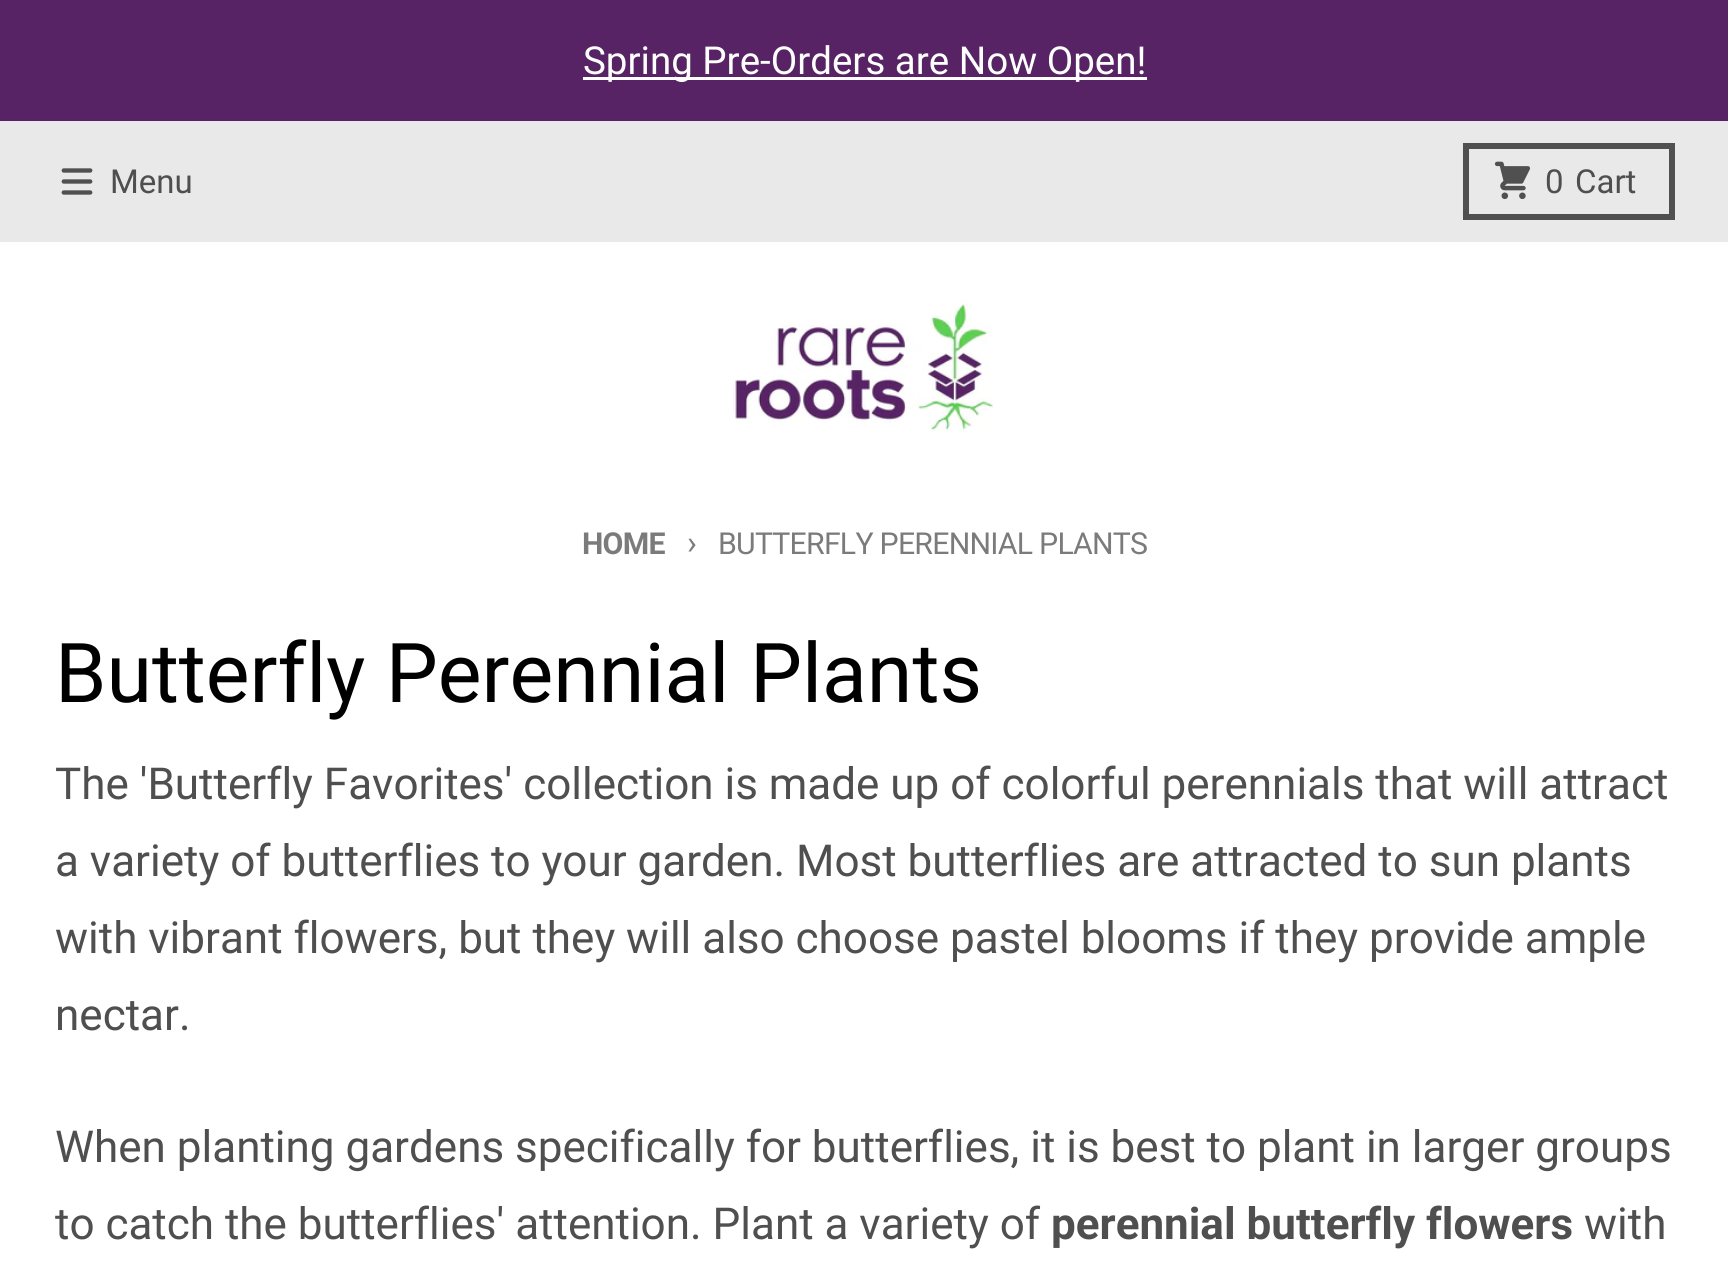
#include <cairo.h>
#include <math.h>
#include <stddef.h>

static cairo_t *ctx;

static void use_color(int r, int g, int b) {
    cairo_set_source_rgb(ctx, r / 255.0, g / 255.0, b / 255.0);
}

static void spaced_text(double x, double y, const char *s, double letter, double word) {
    cairo_move_to(ctx, x, y);
    while (*s) {
        char ch[5] = {0};
        int n = 0;
        do ch[n++] = *s++; while ((*s & 0xC0) == 0x80);
        cairo_show_text(ctx, ch);
        cairo_rel_move_to(ctx, letter + word * (*ch == ' '), 0);
    }
}

static void picture(const char *path, double x, double y, double w, double h) {
    cairo_surface_t *image = cairo_image_surface_create_from_png(path);
    cairo_save(ctx);
    cairo_set_source_surface(ctx, image, x, y);
    cairo_rectangle(ctx, x, y, w, h);
    cairo_fill(ctx);
    cairo_restore(ctx);
    cairo_surface_destroy(image);
}

int main(void) {
    cairo_surface_t *surface = cairo_image_surface_create(CAIRO_FORMAT_RGB24, 1728, 1278);
    ctx = cairo_create(surface);
    cairo_font_options_t *options = cairo_font_options_create();
    cairo_font_options_set_hint_metrics(options, CAIRO_HINT_METRICS_OFF);
    cairo_font_options_set_hint_style(options, CAIRO_HINT_STYLE_NONE);
    cairo_set_font_options(ctx, options);
    cairo_set_miter_limit(ctx, 4);
    use_color(87, 35, 101);
    cairo_paint(ctx);
    use_color(255, 255, 255);
    cairo_rectangle(ctx, 583, 77, 564, 3);
    cairo_fill(ctx);
    cairo_select_font_face(ctx, "Roboto", CAIRO_FONT_SLANT_NORMAL, CAIRO_FONT_WEIGHT_NORMAL);
    cairo_set_font_size(ctx, 38.5);
    cairo_move_to(ctx, 583, 74);
    cairo_show_text(ctx, "Spring Pre-Orders are Now Open!");
    use_color(233, 233, 233);
    cairo_rectangle(ctx, 0, 121, 1728, 121);
    cairo_fill(ctx);
    picture("img1.png", 61, 168, 32, 27);
    cairo_set_font_size(ctx, 33);
    use_color(79, 79, 79);
    cairo_move_to(ctx, 110, 193);
    cairo_show_text(ctx, "Menu");
    cairo_rectangle(ctx, 1466, 146, 206, 71);
    use_color(80, 80, 80);
    cairo_set_line_width(ctx, 6);
    cairo_stroke(ctx);
    picture("img2.png", 1494, 161, 37, 39);
    use_color(79, 79, 79);
    cairo_move_to(ctx, 1545, 193);
    cairo_show_text(ctx, "0");
    cairo_move_to(ctx, 1575, 193);
    cairo_show_text(ctx, "Cart");
    use_color(255, 255, 255);
    cairo_rectangle(ctx, 0, 242, 1728, 1036);
    cairo_fill(ctx);
    picture("img3.png", 733, 299, 261, 134);
    cairo_select_font_face(ctx, "Roboto", CAIRO_FONT_SLANT_NORMAL, CAIRO_FONT_WEIGHT_BOLD);
    cairo_set_font_size(ctx, 30.25);
    use_color(123, 123, 123);
    spaced_text(582, 554, "HOME", -0.75, 0);
    cairo_select_font_face(ctx, "Roboto", CAIRO_FONT_SLANT_NORMAL, CAIRO_FONT_WEIGHT_NORMAL);
    cairo_set_font_size(ctx, 33);
    spaced_text(687, 554, "›", -0.75, 0);
    cairo_set_font_size(ctx, 30.25);
    spaced_text(718, 554, "BUTTERFLY PERENNIAL PLANTS", -0.75, 0);
    cairo_set_font_size(ctx, 82.5);
    use_color(0, 0, 0);
    cairo_move_to(ctx, 55, 702);
    cairo_show_text(ctx, "Butterfly Perennial Plants");
    cairo_set_font_size(ctx, 44);
    use_color(79, 79, 79);
    cairo_move_to(ctx, 55, 799);
    cairo_show_text(ctx, "The 'Butterfly Favorites' collection is made up of colorful perennials that will attract");
    cairo_move_to(ctx, 55, 876);
    cairo_show_text(ctx, "a variety of butterflies to your garden. Most butterflies are attracted to sun plants");
    cairo_move_to(ctx, 55, 953);
    cairo_show_text(ctx, "with vibrant flowers, but they will also choose pastel blooms if they provide ample");
    cairo_move_to(ctx, 55, 1030);
    cairo_show_text(ctx, "nectar.");
    cairo_move_to(ctx, 55, 1162);
    cairo_show_text(ctx, "When planting gardens specifically for butterflies, it is best to plant in larger groups");
    cairo_move_to(ctx, 55, 1239);
    cairo_show_text(ctx, "to catch the butterflies' attention. Plant a variety of");
    cairo_select_font_face(ctx, "Roboto", CAIRO_FONT_SLANT_NORMAL, CAIRO_FONT_WEIGHT_BOLD);
    cairo_move_to(ctx, 1051, 1239);
    cairo_show_text(ctx, "perennial butterfly flowers");
    cairo_select_font_face(ctx, "Roboto", CAIRO_FONT_SLANT_NORMAL, CAIRO_FONT_WEIGHT_NORMAL);
    cairo_move_to(ctx, 1584, 1239);
    cairo_show_text(ctx, "with");
    cairo_surface_write_to_png(surface, "result.png");
    cairo_font_options_destroy(options);
    cairo_destroy(ctx);
    cairo_surface_destroy(surface);
    return 0;
}
